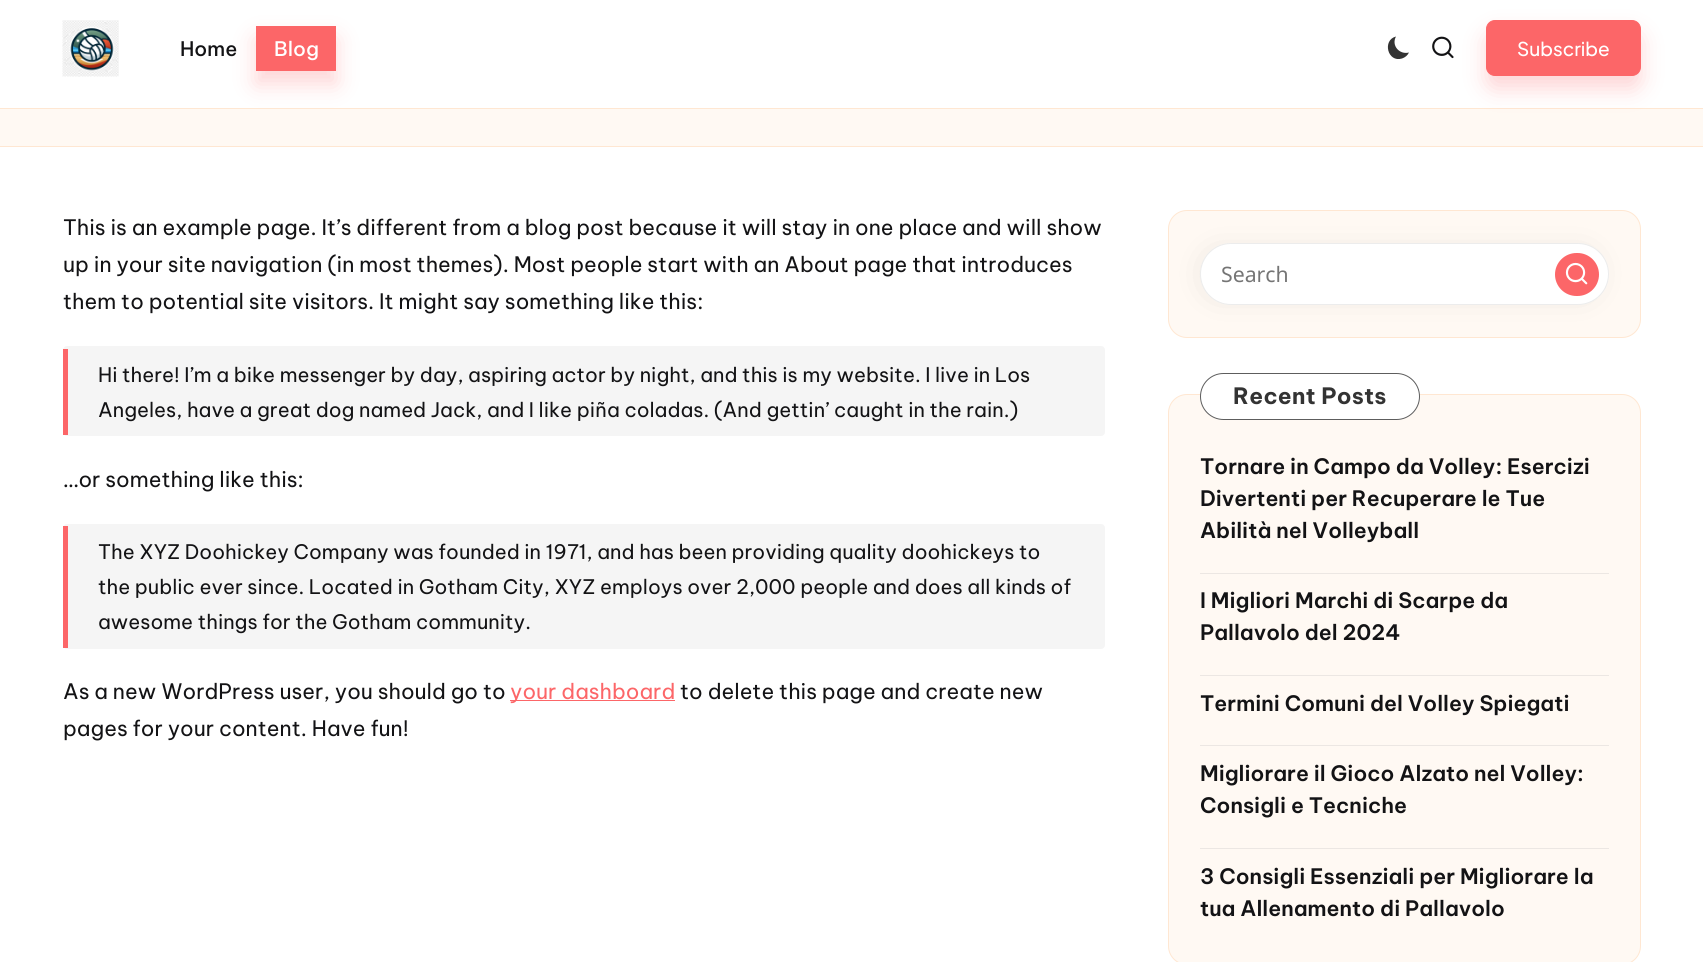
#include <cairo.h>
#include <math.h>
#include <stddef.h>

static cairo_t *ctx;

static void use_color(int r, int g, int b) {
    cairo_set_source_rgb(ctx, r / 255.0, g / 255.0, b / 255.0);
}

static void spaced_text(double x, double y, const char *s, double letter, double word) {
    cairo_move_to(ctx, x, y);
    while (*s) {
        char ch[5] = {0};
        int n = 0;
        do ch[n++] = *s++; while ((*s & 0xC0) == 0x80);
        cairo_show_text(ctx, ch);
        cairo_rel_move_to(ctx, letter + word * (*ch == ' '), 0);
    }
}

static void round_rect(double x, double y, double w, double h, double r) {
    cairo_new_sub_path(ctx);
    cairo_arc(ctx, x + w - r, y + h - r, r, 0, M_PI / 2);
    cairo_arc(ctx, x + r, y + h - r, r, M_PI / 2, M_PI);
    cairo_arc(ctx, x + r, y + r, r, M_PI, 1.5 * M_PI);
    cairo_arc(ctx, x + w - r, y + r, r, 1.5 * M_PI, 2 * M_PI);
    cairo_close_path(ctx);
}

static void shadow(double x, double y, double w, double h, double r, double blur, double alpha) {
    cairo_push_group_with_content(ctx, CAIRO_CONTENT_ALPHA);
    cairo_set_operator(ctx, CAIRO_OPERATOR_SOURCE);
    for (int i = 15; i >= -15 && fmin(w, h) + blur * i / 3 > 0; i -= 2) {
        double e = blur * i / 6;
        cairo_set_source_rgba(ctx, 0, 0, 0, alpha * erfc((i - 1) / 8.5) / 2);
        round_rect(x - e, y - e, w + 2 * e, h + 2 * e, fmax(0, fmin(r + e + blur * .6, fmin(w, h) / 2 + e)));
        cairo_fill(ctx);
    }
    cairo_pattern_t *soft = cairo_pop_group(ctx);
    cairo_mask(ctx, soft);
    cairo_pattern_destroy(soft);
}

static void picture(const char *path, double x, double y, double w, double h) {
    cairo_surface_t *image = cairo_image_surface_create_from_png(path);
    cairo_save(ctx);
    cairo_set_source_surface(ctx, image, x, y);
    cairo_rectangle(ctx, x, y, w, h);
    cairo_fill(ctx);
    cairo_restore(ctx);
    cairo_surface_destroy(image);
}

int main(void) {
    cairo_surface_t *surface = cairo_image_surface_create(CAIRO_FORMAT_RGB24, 1703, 962);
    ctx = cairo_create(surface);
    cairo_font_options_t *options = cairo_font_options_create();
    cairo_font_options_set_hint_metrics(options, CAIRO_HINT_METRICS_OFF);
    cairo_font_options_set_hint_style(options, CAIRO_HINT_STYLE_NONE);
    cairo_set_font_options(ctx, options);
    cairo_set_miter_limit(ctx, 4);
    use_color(255, 255, 255);
    cairo_paint(ctx);
    picture("img1.png", 62, 20, 57, 57);
    cairo_select_font_face(ctx, "Be Vietnam Pro Medium", CAIRO_FONT_SLANT_NORMAL, CAIRO_FONT_WEIGHT_NORMAL);
    cairo_set_font_size(ctx, 20);
    use_color(19, 19, 21);
    cairo_move_to(ctx, 180, 56);
    cairo_show_text(ctx, "Home");
    use_color(255, 249, 243);
    cairo_rectangle(ctx, 0, 109, 1703, 37);
    cairo_fill(ctx);
    use_color(255, 231, 210);
    cairo_rectangle(ctx, 0, 108, 1703, 1);
    cairo_fill(ctx);
    use_color(252, 102, 104);
    shadow(256, 39, 80, 45, 0, 11, 0.27);
    use_color(252, 102, 104);
    cairo_rectangle(ctx, 256, 26, 80, 45);
    cairo_fill(ctx);
    use_color(255, 255, 255);
    cairo_move_to(ctx, 274, 56);
    cairo_show_text(ctx, "Blog");
    use_color(51, 51, 51);
    cairo_new_path(ctx);
    cairo_move_to(ctx, 1409, 52.5);
    cairo_curve_to(ctx, 1399.5, 55, 1391, 45.5, 1396, 36.5);
    cairo_curve_to(ctx, 1382, 40, 1387.5, 63, 1402, 58.5);
    cairo_curve_to(ctx, 1405, 57.5, 1407.5, 55.5, 1409, 52.5);
    cairo_close_path(ctx);
    cairo_fill(ctx);
    picture("img2.png", 1432, 36, 22, 23);
    use_color(252, 102, 104);
    shadow(1486, 33, 155, 56, 9, 11, 0.27);
    use_color(252, 102, 104);
    round_rect(1486.5, 20.5, 154, 55, 8.5);
    cairo_fill_preserve(ctx);
    cairo_set_line_width(ctx, 1);
    cairo_stroke(ctx);
    cairo_select_font_face(ctx, "Plus Jakarta Sans Medium", CAIRO_FONT_SLANT_NORMAL, CAIRO_FONT_WEIGHT_NORMAL);
    cairo_set_font_size(ctx, 19);
    use_color(255, 255, 255);
    cairo_move_to(ctx, 1517, 56);
    cairo_show_text(ctx, "Subscribe");
    use_color(255, 231, 210);
    cairo_rectangle(ctx, 0, 146, 1703, 1);
    cairo_fill(ctx);
    cairo_select_font_face(ctx, "Be Vietnam Pro", CAIRO_FONT_SLANT_NORMAL, CAIRO_FONT_WEIGHT_NORMAL);
    cairo_set_font_size(ctx, 21.25);
    use_color(19, 19, 21);
    cairo_move_to(ctx, 63, 235);
    cairo_show_text(ctx, "This is an example page. It’s different from a blog post because it will stay in one place and will show");
    cairo_move_to(ctx, 63, 272);
    cairo_show_text(ctx, "up in your site navigation (in most themes). Most people start with an About page that introduces");
    cairo_move_to(ctx, 63, 309);
    cairo_show_text(ctx, "them to potential site visitors. It might say something like this:");
    use_color(245, 245, 245);
    round_rect(63, 346, 1042, 90, 4);
    cairo_fill(ctx);
    use_color(252, 102, 104);
    cairo_rectangle(ctx, 63, 349, 5, 86);
    cairo_fill(ctx);
    cairo_set_font_size(ctx, 20);
    use_color(19, 19, 21);
    cairo_move_to(ctx, 98, 382);
    cairo_show_text(ctx, "Hi there! I’m a bike messenger by day, aspiring actor by night, and this is my website. I live in Los");
    cairo_move_to(ctx, 98, 417);
    cairo_show_text(ctx, "Angeles, have a great dog named Jack, and I like piña coladas. (And gettin’ caught in the rain.)");
    cairo_set_font_size(ctx, 21.25);
    cairo_move_to(ctx, 63, 487);
    cairo_show_text(ctx, "…or something like this:");
    use_color(245, 245, 245);
    round_rect(63, 524, 1042, 125, 4);
    cairo_fill(ctx);
    use_color(252, 102, 104);
    cairo_rectangle(ctx, 63, 526, 5, 122);
    cairo_fill(ctx);
    cairo_set_font_size(ctx, 20);
    use_color(19, 19, 21);
    cairo_move_to(ctx, 98, 559);
    cairo_show_text(ctx, "The XYZ Doohickey Company was founded in 1971, and has been providing quality doohickeys to");
    cairo_move_to(ctx, 98, 594);
    cairo_show_text(ctx, "the public ever since. Located in Gotham City, XYZ employs over 2,000 people and does all kinds of");
    cairo_move_to(ctx, 98, 629);
    cairo_show_text(ctx, "awesome things for the Gotham community.");
    cairo_set_font_size(ctx, 21.25);
    cairo_move_to(ctx, 63, 699);
    cairo_show_text(ctx, "As a new WordPress user, you should go to");
    use_color(252, 102, 104);
    cairo_rectangle(ctx, 510, 700, 165, 1);
    cairo_fill(ctx);
    cairo_move_to(ctx, 510, 699);
    cairo_show_text(ctx, "your dashboard");
    use_color(19, 19, 21);
    cairo_move_to(ctx, 680, 699);
    cairo_show_text(ctx, "to delete this page and create new");
    cairo_move_to(ctx, 63, 736);
    cairo_show_text(ctx, "pages for your content. Have fun!");
    use_color(255, 249, 243);
    round_rect(1168.5, 210.5, 472, 127, 18.5);
    cairo_fill_preserve(ctx);
    use_color(255, 231, 210);
    cairo_stroke(ctx);
    use_color(0, 0, 0);
    shadow(1216, 263, 369, 22, 11, 20, 0.15);
    use_color(255, 255, 255);
    round_rect(1200, 243, 409, 62, 31);
    cairo_fill(ctx);
    round_rect(1200.5, 243.5, 408, 61, 30.5);
    cairo_set_source_rgba(ctx, 0.745, 0.745, 0.745, 0.3);
    cairo_stroke(ctx);
    cairo_select_font_face(ctx, "Noto Sans", CAIRO_FONT_SLANT_NORMAL, CAIRO_FONT_WEIGHT_NORMAL);
    use_color(117, 117, 117);
    cairo_move_to(ctx, 1221, 282);
    cairo_show_text(ctx, "Search");
    use_color(252, 102, 104);
    round_rect(1555, 253, 44, 43, 21.5);
    cairo_fill(ctx);
    picture("img3.png", 1565, 262, 23, 23);
    use_color(255, 249, 243);
    round_rect(1168.5, 394.5, 472, 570, 18.5);
    cairo_fill_preserve(ctx);
    use_color(255, 231, 210);
    cairo_stroke(ctx);
    use_color(255, 255, 255);
    round_rect(1200, 373, 220, 47, 23.5);
    cairo_fill(ctx);
    round_rect(1200.5, 373.5, 219, 46, 23);
    cairo_set_source_rgba(ctx, 0.153, 0.153, 0.153, 0.75);
    cairo_stroke(ctx);
    cairo_select_font_face(ctx, "Be Vietnam Pro", CAIRO_FONT_SLANT_NORMAL, CAIRO_FONT_WEIGHT_BOLD);
    cairo_set_font_size(ctx, 22.5);
    use_color(51, 51, 51);
    spaced_text(1233, 404, "Recent Posts", 0.25, 0);
    cairo_select_font_face(ctx, "Be Vietnam Pro SemiBold", CAIRO_FONT_SLANT_NORMAL, CAIRO_FONT_WEIGHT_NORMAL);
    cairo_set_font_size(ctx, 21.25);
    use_color(19, 19, 21);
    cairo_move_to(ctx, 1200, 474);
    cairo_show_text(ctx, "Tornare in Campo da Volley: Esercizi");
    cairo_move_to(ctx, 1200, 506);
    cairo_show_text(ctx, "Divertenti per Recuperare le Tue");
    cairo_move_to(ctx, 1200, 538);
    cairo_show_text(ctx, "Abilità nel Volleyball");
    use_color(236, 231, 227);
    cairo_rectangle(ctx, 1200, 573, 409, 1);
    cairo_fill(ctx);
    use_color(19, 19, 21);
    cairo_move_to(ctx, 1200, 608);
    cairo_show_text(ctx, "I Migliori Marchi di Scarpe da");
    cairo_move_to(ctx, 1200, 640);
    cairo_show_text(ctx, "Pallavolo del 2024");
    use_color(236, 231, 227);
    cairo_rectangle(ctx, 1200, 675, 409, 1);
    cairo_fill(ctx);
    use_color(19, 19, 21);
    cairo_move_to(ctx, 1200, 711);
    cairo_show_text(ctx, "Termini Comuni del Volley Spiegati");
    use_color(236, 231, 227);
    cairo_rectangle(ctx, 1200, 745, 409, 1);
    cairo_fill(ctx);
    use_color(19, 19, 21);
    cairo_move_to(ctx, 1200, 781);
    cairo_show_text(ctx, "Migliorare il Gioco Alzato nel Volley:");
    cairo_move_to(ctx, 1200, 813);
    cairo_show_text(ctx, "Consigli e Tecniche");
    use_color(236, 231, 227);
    cairo_rectangle(ctx, 1200, 848, 409, 1);
    cairo_fill(ctx);
    use_color(19, 19, 21);
    cairo_move_to(ctx, 1200, 884);
    cairo_show_text(ctx, "3 Consigli Essenziali per Migliorare la");
    cairo_move_to(ctx, 1200, 916);
    cairo_show_text(ctx, "tua Allenamento di Pallavolo");
    cairo_surface_write_to_png(surface, "result.png");
    cairo_font_options_destroy(options);
    cairo_destroy(ctx);
    cairo_surface_destroy(surface);
    return 0;
}
